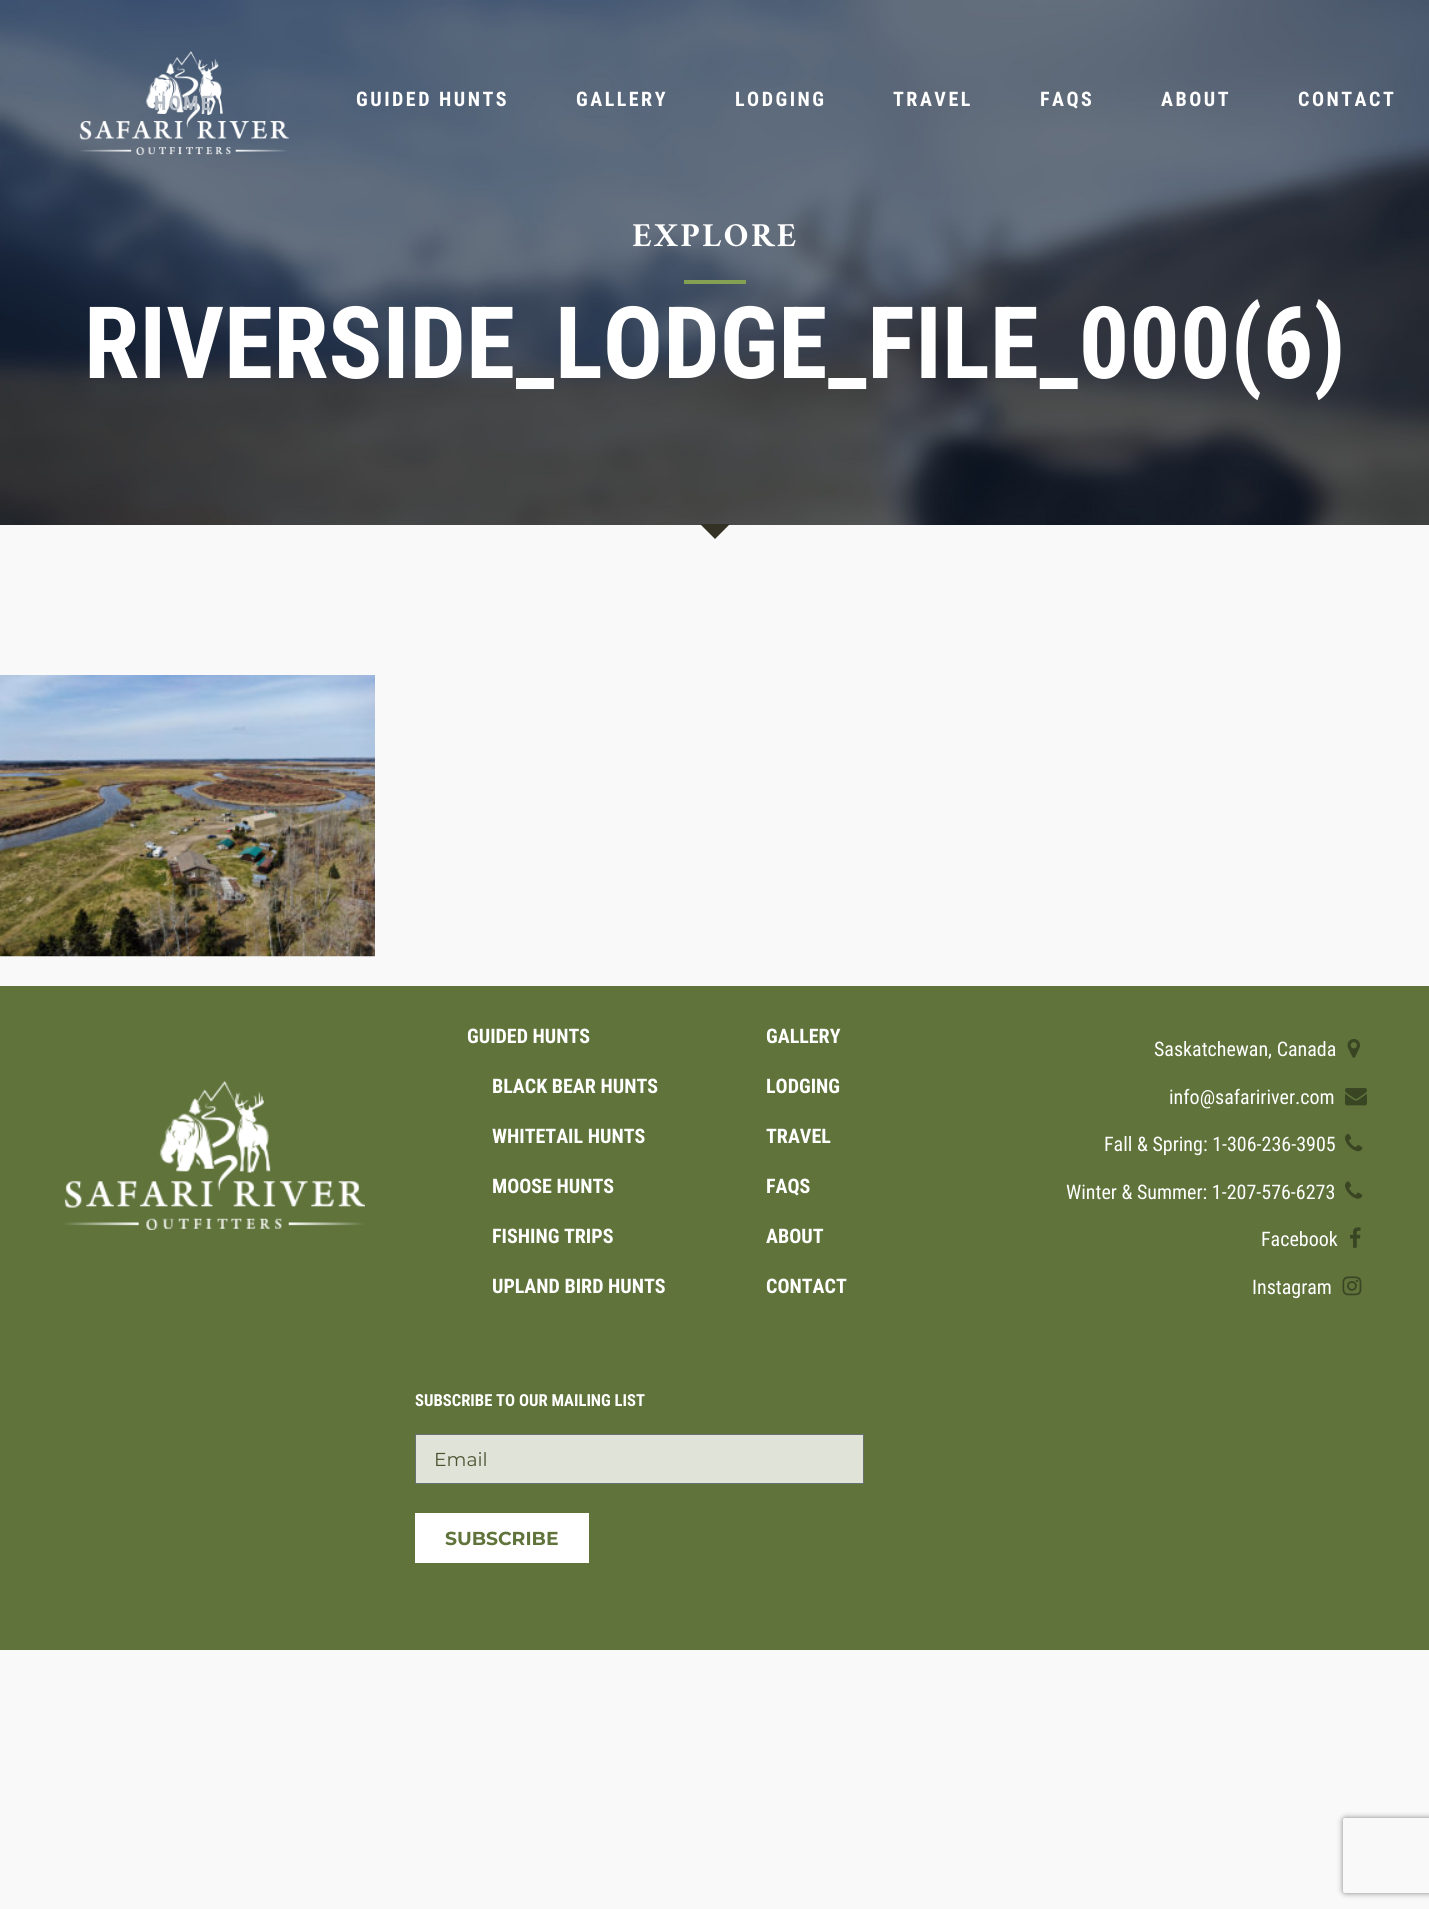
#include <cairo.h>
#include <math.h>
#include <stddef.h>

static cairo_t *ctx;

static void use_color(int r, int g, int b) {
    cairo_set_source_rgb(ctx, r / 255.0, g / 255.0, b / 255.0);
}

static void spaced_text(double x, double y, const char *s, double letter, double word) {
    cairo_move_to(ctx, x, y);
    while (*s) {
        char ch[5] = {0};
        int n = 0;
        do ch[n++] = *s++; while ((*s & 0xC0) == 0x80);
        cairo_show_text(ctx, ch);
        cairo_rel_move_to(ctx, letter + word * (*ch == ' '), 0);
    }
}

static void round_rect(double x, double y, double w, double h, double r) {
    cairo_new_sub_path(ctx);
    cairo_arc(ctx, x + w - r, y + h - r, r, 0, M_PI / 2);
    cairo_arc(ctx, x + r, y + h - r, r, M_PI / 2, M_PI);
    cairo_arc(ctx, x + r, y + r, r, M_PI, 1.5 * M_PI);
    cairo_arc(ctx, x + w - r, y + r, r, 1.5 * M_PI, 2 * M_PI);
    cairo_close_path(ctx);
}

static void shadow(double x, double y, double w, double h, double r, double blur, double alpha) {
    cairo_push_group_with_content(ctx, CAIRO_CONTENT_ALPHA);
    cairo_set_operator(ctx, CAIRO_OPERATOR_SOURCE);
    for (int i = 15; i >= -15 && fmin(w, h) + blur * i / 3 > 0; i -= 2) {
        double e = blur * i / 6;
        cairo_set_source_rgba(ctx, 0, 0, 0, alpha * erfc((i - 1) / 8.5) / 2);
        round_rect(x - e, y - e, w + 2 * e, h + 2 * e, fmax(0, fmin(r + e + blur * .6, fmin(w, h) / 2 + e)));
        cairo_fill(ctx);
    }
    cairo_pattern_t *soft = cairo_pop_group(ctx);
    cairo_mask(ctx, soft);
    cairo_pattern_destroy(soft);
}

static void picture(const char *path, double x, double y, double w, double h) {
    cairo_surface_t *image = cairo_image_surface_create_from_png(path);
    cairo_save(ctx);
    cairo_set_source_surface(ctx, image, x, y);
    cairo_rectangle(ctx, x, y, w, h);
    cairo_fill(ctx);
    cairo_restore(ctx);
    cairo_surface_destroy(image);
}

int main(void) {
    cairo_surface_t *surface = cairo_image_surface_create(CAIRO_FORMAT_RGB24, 1429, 1909);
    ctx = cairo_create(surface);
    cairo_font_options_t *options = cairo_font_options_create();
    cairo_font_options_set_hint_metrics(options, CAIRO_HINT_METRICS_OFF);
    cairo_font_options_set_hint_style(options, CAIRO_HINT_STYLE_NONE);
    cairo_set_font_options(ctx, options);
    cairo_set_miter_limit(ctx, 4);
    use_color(249, 249, 249);
    cairo_paint(ctx);
    picture("img2.png", 0, 0, 1429, 525);
    picture("img1.png", 79, 51, 210, 104);
    cairo_select_font_face(ctx, "Roboto Condensed", CAIRO_FONT_SLANT_NORMAL, CAIRO_FONT_WEIGHT_BOLD);
    cairo_set_font_size(ctx, 20);
    use_color(181, 188, 198);
    spaced_text(154, 110, "HOME", 2.5, 0);
    use_color(255, 255, 255);
    spaced_text(356, 106, "GUIDED HUNTS", 2.5, 0);
    spaced_text(576, 106, "GALLERY", 2.5, 0);
    spaced_text(735, 106, "LODGING", 2.5, 0);
    spaced_text(893, 106, "TRAVEL", 2.5, 0);
    spaced_text(1040, 106, "FAQS", 2.5, 0);
    spaced_text(1161, 106, "ABOUT", 2.5, 0);
    spaced_text(1298, 106, "CONTACT", 2.5, 0);
    cairo_select_font_face(ctx, "Amiri", CAIRO_FONT_SLANT_NORMAL, CAIRO_FONT_WEIGHT_BOLD);
    cairo_set_font_size(ctx, 33.75);
    spaced_text(632, 246, "EXPLORE", 2.5, 0);
    use_color(132, 160, 82);
    cairo_rectangle(ctx, 684, 280, 62, 4);
    cairo_fill(ctx);
    cairo_select_font_face(ctx, "Roboto Condensed", CAIRO_FONT_SLANT_NORMAL, CAIRO_FONT_WEIGHT_BOLD);
    cairo_set_font_size(ctx, 100);
    use_color(255, 255, 255);
    cairo_move_to(ctx, 84, 378);
    cairo_show_text(ctx, "RIVERSIDE_LODGE_FILE_000(6)");
    use_color(51, 50, 37);
    cairo_new_path(ctx);
    cairo_move_to(ctx, 700, 524);
    cairo_line_to(ctx, 730, 524);
    cairo_line_to(ctx, 715, 539);
    cairo_close_path(ctx);
    cairo_fill(ctx);
    picture("img3.png", 0, 675, 375, 282);
    use_color(95, 115, 59);
    cairo_rectangle(ctx, 0, 986, 1429, 664);
    cairo_fill(ctx);
    picture("img4.png", 64, 1081, 301, 149);
    cairo_set_font_size(ctx, 20);
    use_color(255, 255, 255);
    cairo_move_to(ctx, 467, 1043);
    cairo_show_text(ctx, "GUIDED HUNTS");
    cairo_move_to(ctx, 492, 1093);
    cairo_show_text(ctx, "BLACK BEAR HUNTS");
    cairo_move_to(ctx, 492, 1143);
    cairo_show_text(ctx, "WHITETAIL HUNTS");
    cairo_move_to(ctx, 492, 1193);
    cairo_show_text(ctx, "MOOSE HUNTS");
    cairo_move_to(ctx, 492, 1243);
    cairo_show_text(ctx, "FISHING TRIPS");
    cairo_move_to(ctx, 492, 1293);
    cairo_show_text(ctx, "UPLAND BIRD HUNTS");
    cairo_move_to(ctx, 766, 1043);
    cairo_show_text(ctx, "GALLERY");
    cairo_move_to(ctx, 766, 1093);
    cairo_show_text(ctx, "LODGING");
    cairo_move_to(ctx, 766, 1143);
    cairo_show_text(ctx, "TRAVEL");
    cairo_move_to(ctx, 766, 1193);
    cairo_show_text(ctx, "FAQS");
    cairo_move_to(ctx, 766, 1243);
    cairo_show_text(ctx, "ABOUT");
    cairo_move_to(ctx, 766, 1293);
    cairo_show_text(ctx, "CONTACT");
    cairo_select_font_face(ctx, "Roboto Condensed", CAIRO_FONT_SLANT_NORMAL, CAIRO_FONT_WEIGHT_NORMAL);
    cairo_move_to(ctx, 1154, 1056);
    cairo_show_text(ctx, "Saskatchewan, Canada");
    picture("img5.png", 1347, 1039, 13, 19);
    cairo_move_to(ctx, 1169, 1104);
    cairo_show_text(ctx, "info@safaririver.com");
    picture("img6.png", 1345, 1088, 22, 18);
    cairo_move_to(ctx, 1104, 1151);
    cairo_show_text(ctx, "Fall & Spring: 1-306-236-3905");
    picture("img7.png", 1345, 1134, 18, 18);
    cairo_move_to(ctx, 1066, 1199);
    cairo_show_text(ctx, "Winter & Summer: 1-207-576-6273");
    picture("img8.png", 1345, 1181, 18, 18);
    cairo_move_to(ctx, 1261, 1246);
    cairo_show_text(ctx, "Facebook");
    picture("img9.png", 1350, 1227, 11, 21);
    cairo_move_to(ctx, 1252, 1294);
    cairo_show_text(ctx, "Instagram");
    picture("img10.png", 1342, 1276, 20, 20);
    cairo_select_font_face(ctx, "Roboto Condensed", CAIRO_FONT_SLANT_NORMAL, CAIRO_FONT_WEIGHT_BOLD);
    cairo_set_font_size(ctx, 16.6);
    cairo_move_to(ctx, 415, 1406);
    cairo_show_text(ctx, "SUBSCRIBE TO OUR MAILING LIST");
    use_color(223, 227, 216);
    cairo_rectangle(ctx, 415.5, 1434.5, 448, 49);
    cairo_fill_preserve(ctx);
    use_color(103, 114, 112);
    cairo_set_line_width(ctx, 1);
    cairo_stroke(ctx);
    cairo_select_font_face(ctx, "Montserrat", CAIRO_FONT_SLANT_NORMAL, CAIRO_FONT_WEIGHT_NORMAL);
    cairo_set_font_size(ctx, 18.75);
    use_color(77, 84, 50);
    cairo_move_to(ctx, 434, 1466);
    cairo_show_text(ctx, "Email");
    use_color(255, 255, 255);
    cairo_rectangle(ctx, 415, 1513, 174, 50);
    cairo_fill(ctx);
    cairo_select_font_face(ctx, "Montserrat", CAIRO_FONT_SLANT_NORMAL, CAIRO_FONT_WEIGHT_BOLD);
    use_color(95, 115, 59);
    cairo_move_to(ctx, 445, 1545);
    cairo_show_text(ctx, "SUBSCRIBE");
    cairo_save(ctx);
    cairo_set_fill_rule(ctx, CAIRO_FILL_RULE_EVEN_ODD);
    cairo_new_path(ctx);
    cairo_move_to(ctx, 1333, 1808);
    cairo_line_to(ctx, 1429, 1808);
    cairo_line_to(ctx, 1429, 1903);
    cairo_line_to(ctx, 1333, 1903);
    cairo_close_path(ctx);
    cairo_move_to(ctx, 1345.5, 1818);
    cairo_line_to(ctx, 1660.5, 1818);
    cairo_curve_to(ctx, 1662, 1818, 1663, 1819, 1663, 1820.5);
    cairo_line_to(ctx, 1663, 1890.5);
    cairo_curve_to(ctx, 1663, 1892, 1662, 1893, 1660.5, 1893);
    cairo_line_to(ctx, 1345.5, 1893);
    cairo_curve_to(ctx, 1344, 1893, 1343, 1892, 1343, 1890.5);
    cairo_line_to(ctx, 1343, 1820.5);
    cairo_curve_to(ctx, 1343, 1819, 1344, 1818, 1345.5, 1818);
    cairo_close_path(ctx);
    cairo_clip(ctx);
    use_color(128, 128, 128);
    shadow(1343, 1818, 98, 75, 2.5, 3, 1);
    cairo_restore(ctx);
    cairo_surface_write_to_png(surface, "result.png");
    cairo_font_options_destroy(options);
    cairo_destroy(ctx);
    cairo_surface_destroy(surface);
    return 0;
}
